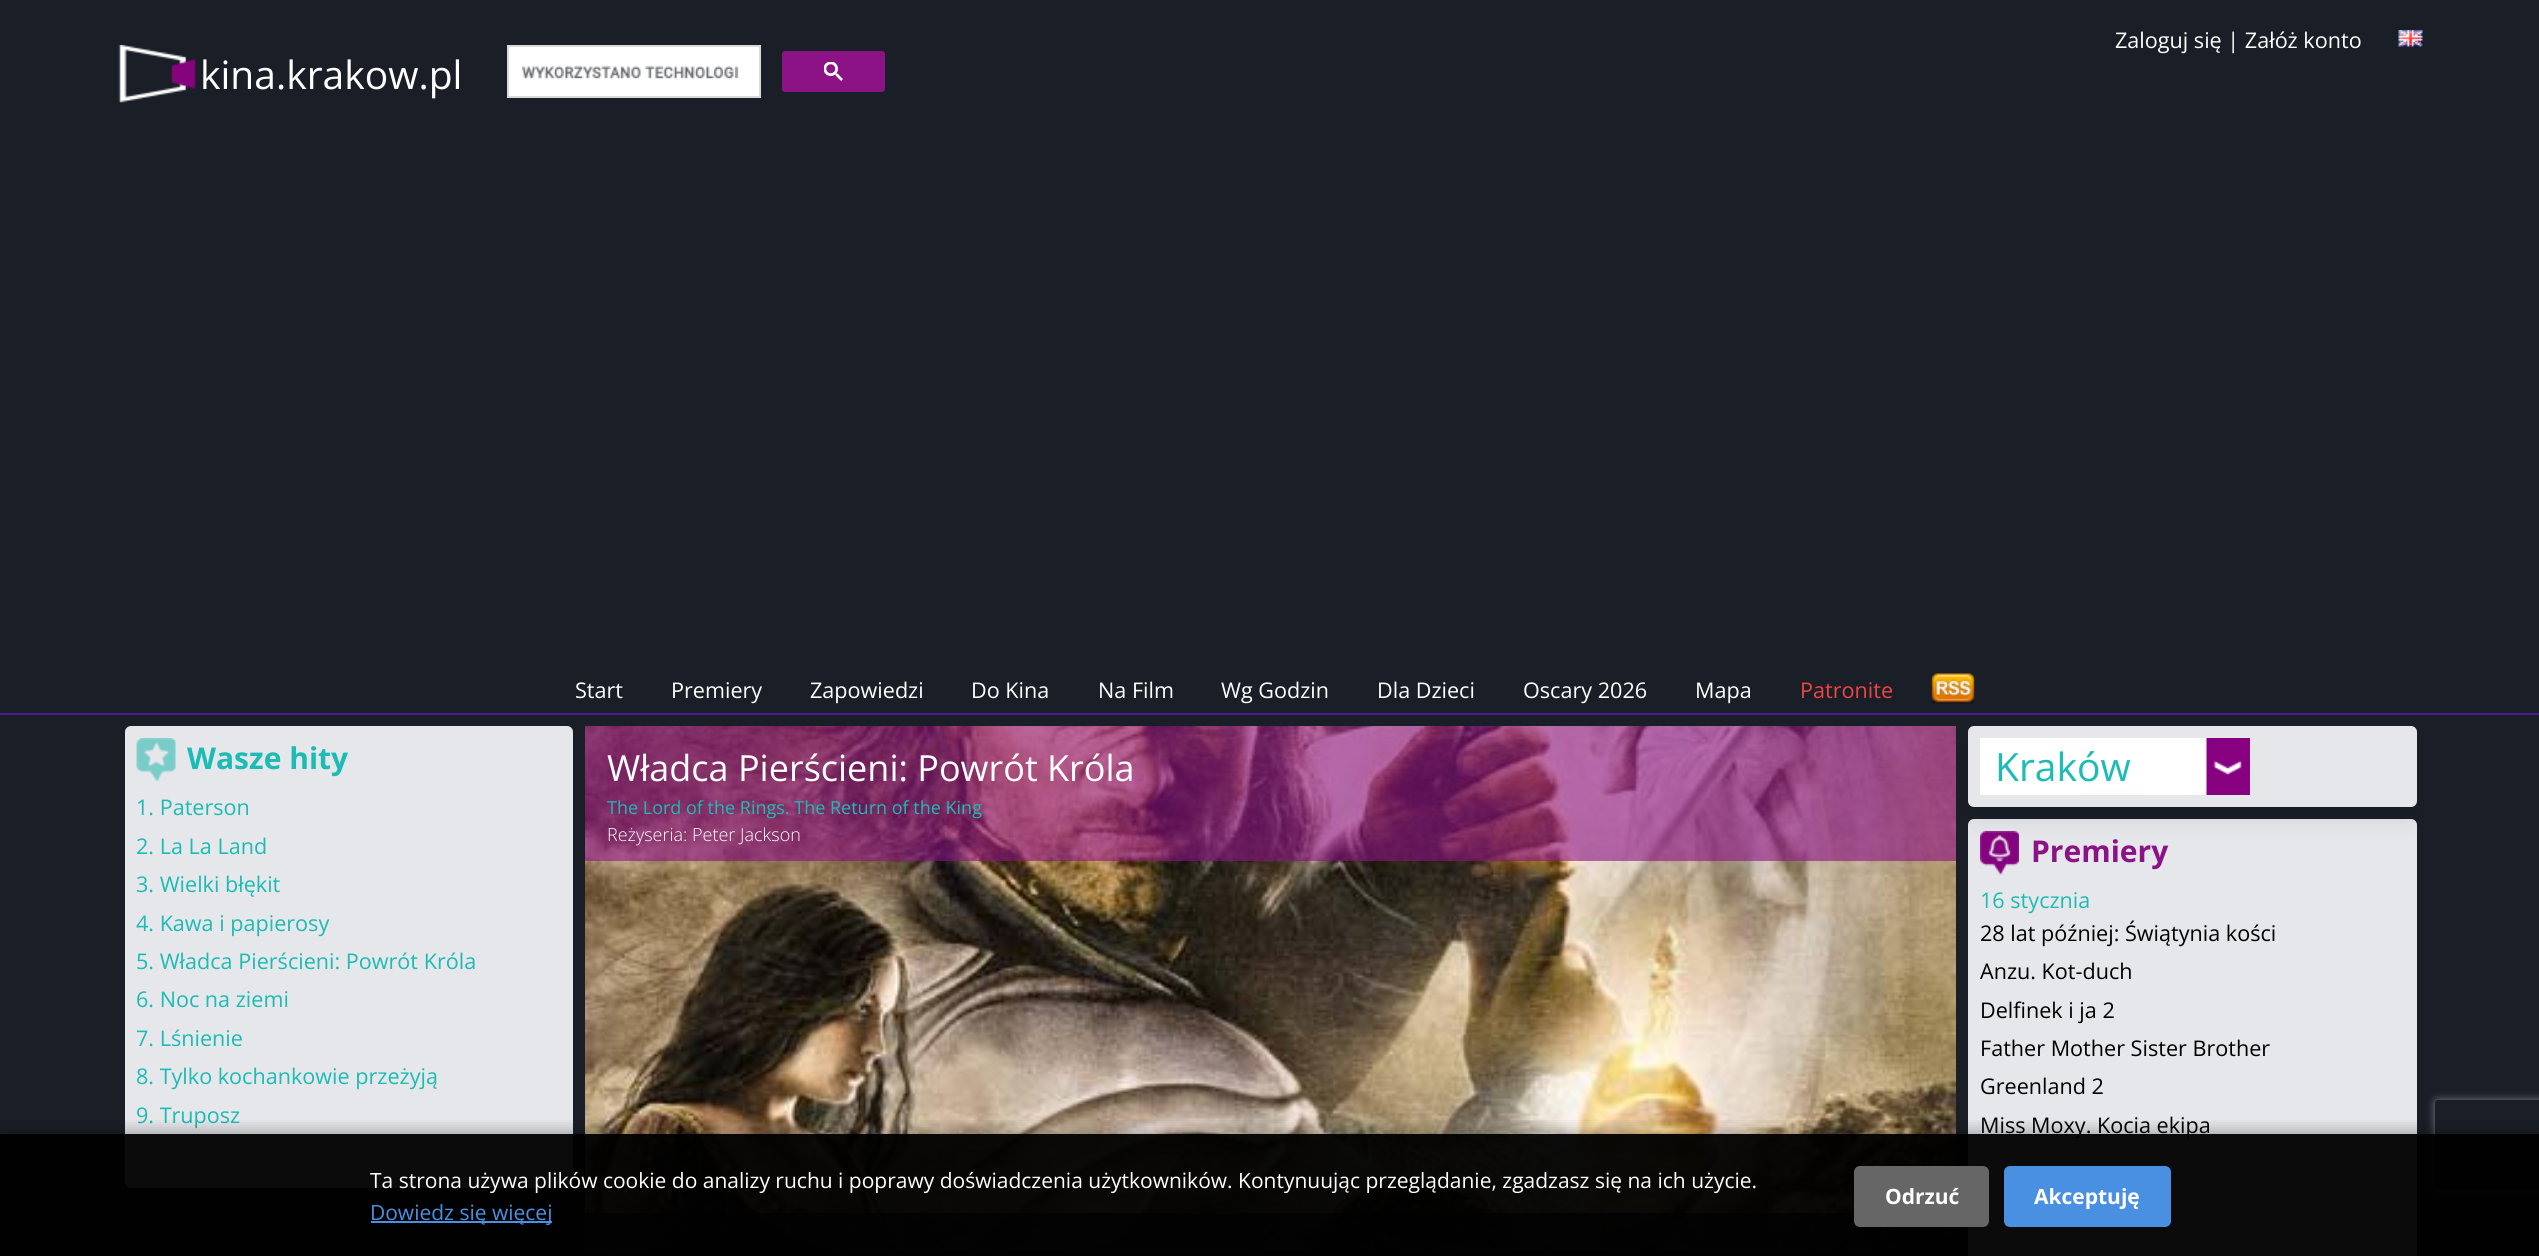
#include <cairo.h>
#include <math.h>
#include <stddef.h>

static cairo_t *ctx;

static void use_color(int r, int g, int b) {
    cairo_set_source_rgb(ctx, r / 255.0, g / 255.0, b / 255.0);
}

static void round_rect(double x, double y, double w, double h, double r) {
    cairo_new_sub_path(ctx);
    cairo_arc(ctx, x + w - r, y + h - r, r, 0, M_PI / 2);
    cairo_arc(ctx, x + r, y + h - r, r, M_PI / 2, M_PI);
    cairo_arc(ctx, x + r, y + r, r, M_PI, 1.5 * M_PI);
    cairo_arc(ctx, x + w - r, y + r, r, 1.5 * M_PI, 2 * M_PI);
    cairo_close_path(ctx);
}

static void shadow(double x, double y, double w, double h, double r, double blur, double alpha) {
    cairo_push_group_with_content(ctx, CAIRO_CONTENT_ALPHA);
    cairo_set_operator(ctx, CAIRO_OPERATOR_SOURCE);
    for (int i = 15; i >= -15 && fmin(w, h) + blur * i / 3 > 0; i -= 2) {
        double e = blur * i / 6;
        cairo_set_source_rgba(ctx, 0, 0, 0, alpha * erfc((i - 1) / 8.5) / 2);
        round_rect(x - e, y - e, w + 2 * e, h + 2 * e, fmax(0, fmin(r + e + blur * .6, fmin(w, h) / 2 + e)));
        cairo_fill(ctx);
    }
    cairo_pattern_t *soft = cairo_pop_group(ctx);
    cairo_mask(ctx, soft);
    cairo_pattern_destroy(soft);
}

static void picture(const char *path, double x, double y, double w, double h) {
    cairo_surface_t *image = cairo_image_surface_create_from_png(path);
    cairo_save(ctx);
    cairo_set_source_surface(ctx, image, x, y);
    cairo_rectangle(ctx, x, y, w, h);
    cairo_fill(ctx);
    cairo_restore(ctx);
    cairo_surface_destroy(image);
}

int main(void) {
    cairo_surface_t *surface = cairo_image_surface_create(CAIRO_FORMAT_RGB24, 2539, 1256);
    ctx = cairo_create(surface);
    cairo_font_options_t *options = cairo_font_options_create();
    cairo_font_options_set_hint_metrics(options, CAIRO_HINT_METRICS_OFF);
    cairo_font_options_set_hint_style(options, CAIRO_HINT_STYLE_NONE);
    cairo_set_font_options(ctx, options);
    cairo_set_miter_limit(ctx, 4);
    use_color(26, 30, 39);
    cairo_paint(ctx);
    use_color(76, 29, 149);
    cairo_rectangle(ctx, 0, 713, 2539, 2);
    cairo_fill(ctx);
    cairo_select_font_face(ctx, "Open Sans", CAIRO_FONT_SLANT_NORMAL, CAIRO_FONT_WEIGHT_NORMAL);
    cairo_set_font_size(ctx, 21.6);
    use_color(255, 255, 255);
    cairo_move_to(ctx, 2115, 48);
    cairo_show_text(ctx, "Zaloguj się | Załóż konto");
    picture("img1.png", 2398, 30, 25, 17);
    picture("img2.png", 118, 45, 79, 58);
    cairo_set_font_size(ctx, 39);
    cairo_move_to(ctx, 200, 89);
    cairo_show_text(ctx, "kina.krakow.pl");
    cairo_rectangle(ctx, 508, 46, 252, 51);
    cairo_fill_preserve(ctx);
    use_color(217, 217, 217);
    cairo_stroke(ctx);
    picture("img3.png", 522, 65, 217, 14);
    use_color(140, 19, 134);
    round_rect(783, 52, 101, 39, 2);
    cairo_fill_preserve(ctx);
    cairo_stroke(ctx);
    picture("img4.png", 824, 62, 19, 19);
    cairo_set_font_size(ctx, 21.6);
    use_color(255, 255, 255);
    cairo_move_to(ctx, 575, 698);
    cairo_show_text(ctx, "Start");
    cairo_move_to(ctx, 671, 698);
    cairo_show_text(ctx, "Premiery");
    cairo_move_to(ctx, 810, 698);
    cairo_show_text(ctx, "Zapowiedzi");
    cairo_move_to(ctx, 971, 698);
    cairo_show_text(ctx, "Do Kina");
    cairo_move_to(ctx, 1098, 698);
    cairo_show_text(ctx, "Na Film");
    cairo_move_to(ctx, 1221, 698);
    cairo_show_text(ctx, "Wg Godzin");
    cairo_move_to(ctx, 1377, 698);
    cairo_show_text(ctx, "Dla Dzieci");
    cairo_move_to(ctx, 1523, 698);
    cairo_show_text(ctx, "Oscary 2026");
    cairo_move_to(ctx, 1695, 698);
    cairo_show_text(ctx, "Mapa");
    use_color(239, 68, 68);
    cairo_move_to(ctx, 1800, 698);
    cairo_show_text(ctx, "Patronite");
    picture("img5.png", 1931, 673, 44, 31);
    use_color(229, 231, 235);
    round_rect(125, 726, 448, 462, 6);
    cairo_fill(ctx);
    picture("img6.png", 136, 738, 40, 44);
    cairo_select_font_face(ctx, "Open Sans", CAIRO_FONT_SLANT_NORMAL, CAIRO_FONT_WEIGHT_BOLD);
    cairo_set_font_size(ctx, 30);
    use_color(28, 187, 180);
    cairo_move_to(ctx, 187, 769);
    cairo_show_text(ctx, "Wasze hity");
    cairo_select_font_face(ctx, "Open Sans", CAIRO_FONT_SLANT_NORMAL, CAIRO_FONT_WEIGHT_NORMAL);
    cairo_set_font_size(ctx, 21.6);
    cairo_move_to(ctx, 136, 815);
    cairo_show_text(ctx, "1. Paterson");
    cairo_move_to(ctx, 136, 854);
    cairo_show_text(ctx, "2. La La Land");
    cairo_move_to(ctx, 136, 892);
    cairo_show_text(ctx, "3. Wielki błękit");
    cairo_move_to(ctx, 136, 931);
    cairo_show_text(ctx, "4. Kawa i papierosy");
    cairo_move_to(ctx, 136, 969);
    cairo_show_text(ctx, "5. Władca Pierścieni: Powrót Króla");
    cairo_move_to(ctx, 136, 1007);
    cairo_show_text(ctx, "6. Noc na ziemi");
    cairo_move_to(ctx, 136, 1046);
    cairo_show_text(ctx, "7. Lśnienie");
    cairo_move_to(ctx, 136, 1084);
    cairo_show_text(ctx, "8. Tylko kochankowie przeżyją");
    cairo_move_to(ctx, 136, 1123);
    cairo_show_text(ctx, "9. Truposz");
    picture("img7.png", 585, 726, 1371, 525);
    cairo_set_source_rgba(ctx, 0.549, 0.071, 0.522, 0.6);
    cairo_rectangle(ctx, 585, 726, 1371, 135);
    cairo_fill(ctx);
    cairo_set_font_size(ctx, 36);
    use_color(255, 255, 255);
    cairo_move_to(ctx, 607, 781);
    cairo_show_text(ctx, "Władca Pierścieni: Powrót Króla");
    cairo_set_font_size(ctx, 18);
    use_color(28, 187, 180);
    cairo_move_to(ctx, 607, 814);
    cairo_show_text(ctx, "The Lord of the Rings. The Return of the King");
    cairo_select_font_face(ctx, "Open Sans Light", CAIRO_FONT_SLANT_NORMAL, CAIRO_FONT_WEIGHT_NORMAL);
    use_color(255, 255, 255);
    cairo_move_to(ctx, 607, 841);
    cairo_show_text(ctx, "Reżyseria: Peter Jackson");
    cairo_set_source_rgba(ctx, 0.082, 0.098, 0.125, 0.8);
    cairo_rectangle(ctx, 585, 1213, 1371, 38);
    cairo_fill(ctx);
    use_color(229, 231, 235);
    round_rect(1968, 819, 449, 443, 6);
    cairo_fill(ctx);
    picture("img9.png", 1980, 831, 39, 44);
    use_color(0, 0, 0);
    shadow(1973, 746, 439, 72, 1.5, 11, 0.1);
    use_color(229, 231, 235);
    round_rect(1968, 726, 449, 81, 6);
    cairo_fill(ctx);
    picture("img8.png", 1980, 738, 270, 57);
    cairo_select_font_face(ctx, "Open Sans", CAIRO_FONT_SLANT_NORMAL, CAIRO_FONT_WEIGHT_NORMAL);
    cairo_set_font_size(ctx, 39);
    use_color(28, 187, 180);
    cairo_move_to(ctx, 1995, 781);
    cairo_show_text(ctx, "Kraków");
    cairo_select_font_face(ctx, "Open Sans", CAIRO_FONT_SLANT_NORMAL, CAIRO_FONT_WEIGHT_BOLD);
    cairo_set_font_size(ctx, 30);
    use_color(140, 19, 134);
    cairo_move_to(ctx, 2031, 862);
    cairo_show_text(ctx, "Premiery");
    cairo_select_font_face(ctx, "Open Sans", CAIRO_FONT_SLANT_NORMAL, CAIRO_FONT_WEIGHT_NORMAL);
    cairo_set_font_size(ctx, 21.6);
    use_color(28, 187, 180);
    cairo_move_to(ctx, 1980, 908);
    cairo_show_text(ctx, "16 stycznia");
    use_color(0, 0, 0);
    cairo_move_to(ctx, 1980, 941);
    cairo_show_text(ctx, "28 lat później: Świątynia kości");
    cairo_move_to(ctx, 1980, 979);
    cairo_show_text(ctx, "Anzu. Kot-duch");
    cairo_move_to(ctx, 1980, 1018);
    cairo_show_text(ctx, "Delfinek i ja 2");
    cairo_move_to(ctx, 1980, 1056);
    cairo_show_text(ctx, "Father Mother Sister Brother");
    cairo_move_to(ctx, 1980, 1094);
    cairo_show_text(ctx, "Greenland 2");
    cairo_move_to(ctx, 1980, 1133);
    cairo_show_text(ctx, "Miss Moxy. Kocia ekipa");
    cairo_save(ctx);
    cairo_set_fill_rule(ctx, CAIRO_FILL_RULE_EVEN_ODD);
    cairo_new_path(ctx);
    cairo_move_to(ctx, 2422, 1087);
    cairo_line_to(ctx, 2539, 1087);
    cairo_line_to(ctx, 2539, 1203);
    cairo_line_to(ctx, 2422, 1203);
    cairo_close_path(ctx);
    cairo_move_to(ctx, 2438, 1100);
    cairo_line_to(ctx, 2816, 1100);
    cairo_curve_to(ctx, 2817.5, 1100, 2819, 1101.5, 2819, 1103);
    cairo_line_to(ctx, 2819, 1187);
    cairo_curve_to(ctx, 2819, 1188.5, 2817.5, 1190, 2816, 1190);
    cairo_line_to(ctx, 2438, 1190);
    cairo_curve_to(ctx, 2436.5, 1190, 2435, 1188.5, 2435, 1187);
    cairo_line_to(ctx, 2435, 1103);
    cairo_curve_to(ctx, 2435, 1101.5, 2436.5, 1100, 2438, 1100);
    cairo_close_path(ctx);
    cairo_clip(ctx);
    use_color(128, 128, 128);
    shadow(2435, 1100, 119, 90, 3, 4, 1);
    cairo_restore(ctx);
    cairo_save(ctx);
    cairo_rectangle(ctx, 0, 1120, 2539, 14);
    cairo_clip(ctx);
    use_color(0, 0, 0);
    shadow(0, 1131, 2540, 123, 0, 7.5, 0.3);
    cairo_restore(ctx);
    cairo_set_source_rgba(ctx, 0, 0, 0, 0.95);
    cairo_rectangle(ctx, 0, 1134, 2539, 122);
    cairo_fill(ctx);
    cairo_set_font_size(ctx, 21);
    use_color(255, 255, 255);
    cairo_move_to(ctx, 370, 1188);
    cairo_show_text(ctx, "Ta strona używa plików cookie do analizy ruchu i poprawy doświadczenia użytkowników. Kontynuując przeglądanie, zgadzasz się na ich użycie.");
    use_color(74, 144, 226);
    cairo_rectangle(ctx, 371, 1221, 181, 2);
    cairo_fill(ctx);
    cairo_move_to(ctx, 370, 1220);
    cairo_show_text(ctx, "Dowiedz się więcej");
    use_color(102, 102, 102);
    round_rect(1854, 1166, 135, 61, 6);
    cairo_fill(ctx);
    cairo_select_font_face(ctx, "Open Sans", CAIRO_FONT_SLANT_NORMAL, CAIRO_FONT_WEIGHT_BOLD);
    use_color(255, 255, 255);
    cairo_move_to(ctx, 1885, 1204);
    cairo_show_text(ctx, "Odrzuć");
    use_color(74, 144, 226);
    round_rect(2004, 1166, 167, 61, 6);
    cairo_fill(ctx);
    use_color(255, 255, 255);
    cairo_move_to(ctx, 2034, 1204);
    cairo_show_text(ctx, "Akceptuję");
    cairo_surface_write_to_png(surface, "result.png");
    cairo_font_options_destroy(options);
    cairo_destroy(ctx);
    cairo_surface_destroy(surface);
    return 0;
}
